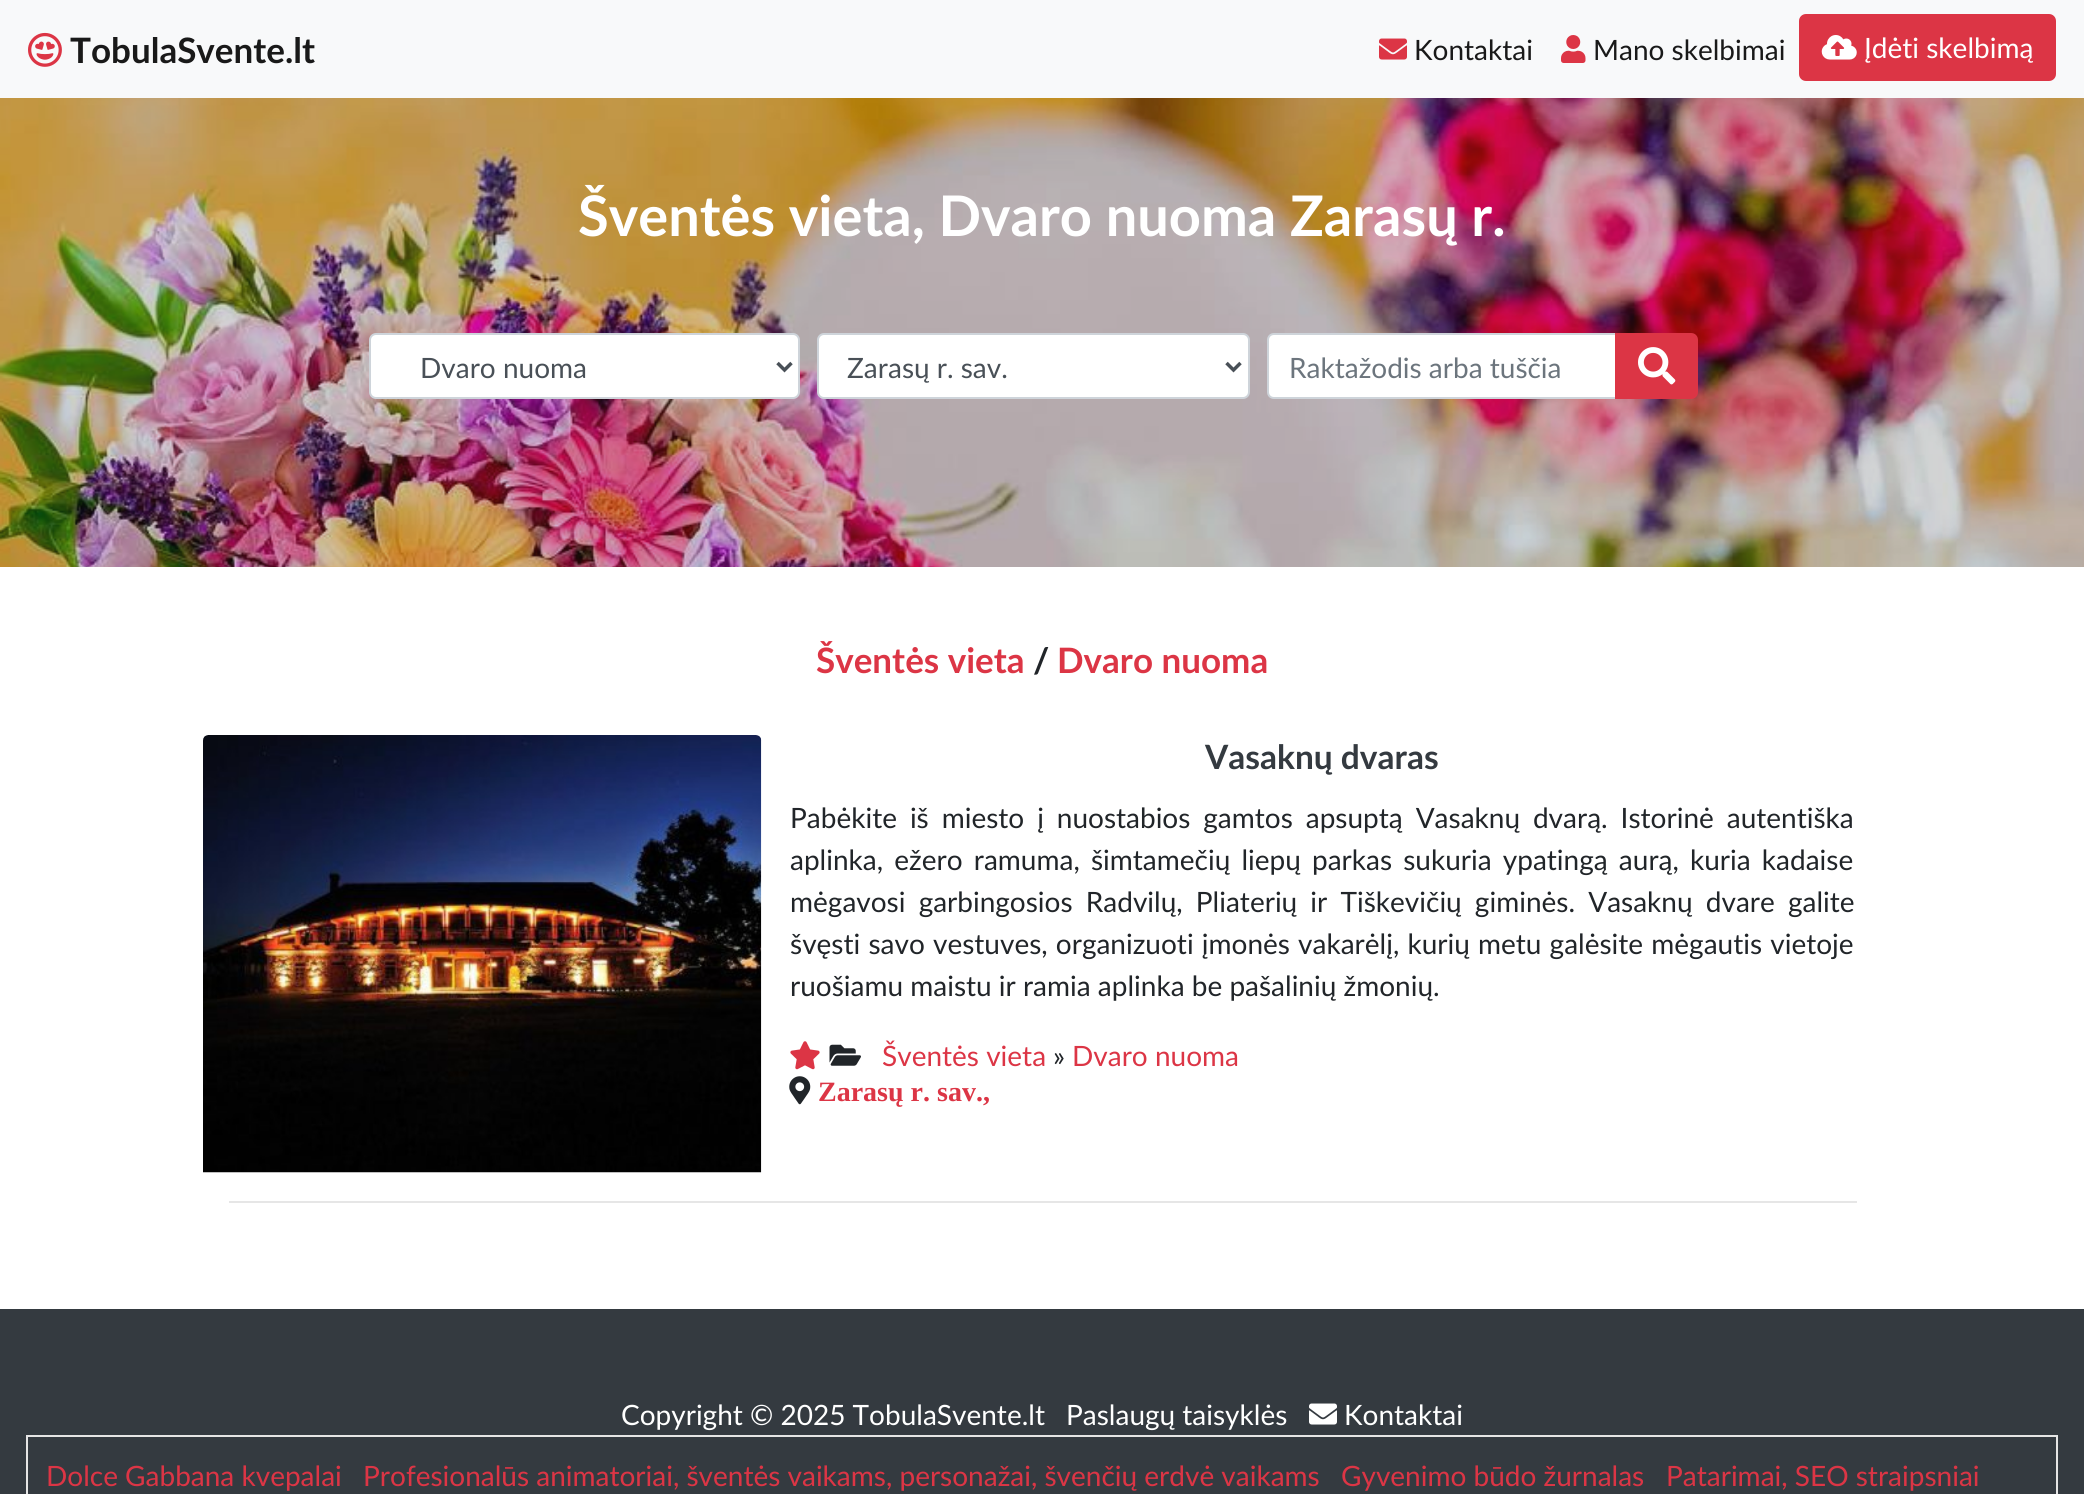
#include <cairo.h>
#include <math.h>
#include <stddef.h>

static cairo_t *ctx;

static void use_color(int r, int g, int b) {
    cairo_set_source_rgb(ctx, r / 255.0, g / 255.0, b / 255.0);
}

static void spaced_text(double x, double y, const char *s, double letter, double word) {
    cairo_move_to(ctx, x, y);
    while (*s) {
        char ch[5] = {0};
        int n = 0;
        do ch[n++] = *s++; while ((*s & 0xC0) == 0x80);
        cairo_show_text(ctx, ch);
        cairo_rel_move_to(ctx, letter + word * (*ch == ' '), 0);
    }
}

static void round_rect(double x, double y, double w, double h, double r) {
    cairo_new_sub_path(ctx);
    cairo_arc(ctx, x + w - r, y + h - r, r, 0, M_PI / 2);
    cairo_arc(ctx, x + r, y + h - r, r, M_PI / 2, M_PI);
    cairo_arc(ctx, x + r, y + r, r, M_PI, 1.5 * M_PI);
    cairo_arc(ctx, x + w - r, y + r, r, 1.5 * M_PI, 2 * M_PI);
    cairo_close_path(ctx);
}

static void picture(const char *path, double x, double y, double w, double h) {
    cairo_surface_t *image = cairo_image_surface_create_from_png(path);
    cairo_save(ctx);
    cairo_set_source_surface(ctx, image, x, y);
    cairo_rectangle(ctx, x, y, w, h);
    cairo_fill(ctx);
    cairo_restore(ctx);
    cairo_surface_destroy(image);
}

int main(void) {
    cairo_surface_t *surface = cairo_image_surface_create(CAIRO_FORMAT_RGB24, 2084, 1494);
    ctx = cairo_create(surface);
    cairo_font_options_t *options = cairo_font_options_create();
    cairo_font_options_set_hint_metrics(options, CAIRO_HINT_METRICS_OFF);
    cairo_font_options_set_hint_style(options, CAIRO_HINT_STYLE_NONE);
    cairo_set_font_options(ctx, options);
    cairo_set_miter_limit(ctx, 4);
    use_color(255, 255, 255);
    cairo_paint(ctx);
    use_color(248, 249, 250);
    cairo_rectangle(ctx, 0, 0, 2084, 98);
    cairo_fill(ctx);
    picture("img1.png", 28, 32, 34, 35);
    cairo_select_font_face(ctx, "Lato", CAIRO_FONT_SLANT_NORMAL, CAIRO_FONT_WEIGHT_BOLD);
    cairo_set_font_size(ctx, 35);
    use_color(25, 25, 25);
    cairo_move_to(ctx, 70, 63);
    cairo_show_text(ctx, "TobulaSvente.lt");
    picture("img2.png", 1379, 38, 28, 22);
    cairo_select_font_face(ctx, "Lato", CAIRO_FONT_SLANT_NORMAL, CAIRO_FONT_WEIGHT_NORMAL);
    cairo_set_font_size(ctx, 28);
    cairo_move_to(ctx, 1414, 60);
    cairo_show_text(ctx, "Kontaktai");
    picture("img3.png", 1561, 35, 25, 28);
    cairo_move_to(ctx, 1593, 60);
    cairo_show_text(ctx, "Mano skelbimai");
    use_color(220, 53, 69);
    round_rect(1800, 15, 255, 65, 6);
    cairo_fill_preserve(ctx);
    cairo_stroke(ctx);
    picture("img4.png", 1821, 35, 36, 25);
    use_color(255, 255, 255);
    cairo_move_to(ctx, 1864, 58);
    cairo_show_text(ctx, "Įdėti skelbimą");
    picture("img5.png", 0, 98, 2084, 469);
    cairo_select_font_face(ctx, "Lato", CAIRO_FONT_SLANT_NORMAL, CAIRO_FONT_WEIGHT_BOLD);
    cairo_set_font_size(ctx, 56);
    cairo_move_to(ctx, 578, 236);
    cairo_show_text(ctx, "Šventės vieta, Dvaro nuoma Zarasų r.");
    round_rect(370, 334, 429, 64, 6);
    cairo_fill_preserve(ctx);
    use_color(206, 212, 218);
    cairo_stroke(ctx);
    cairo_new_path(ctx);
    cairo_move_to(ctx, 777.5, 363);
    cairo_line_to(ctx, 784.5, 370);
    cairo_line_to(ctx, 791.5, 363);
    use_color(73, 80, 87);
    cairo_set_line_width(ctx, 3.5);
    cairo_stroke(ctx);
    cairo_select_font_face(ctx, "Lato", CAIRO_FONT_SLANT_NORMAL, CAIRO_FONT_WEIGHT_NORMAL);
    cairo_set_font_size(ctx, 28);
    cairo_move_to(ctx, 420, 378);
    cairo_show_text(ctx, "Dvaro nuoma");
    use_color(255, 255, 255);
    round_rect(818, 334, 431, 64, 6);
    cairo_fill_preserve(ctx);
    use_color(206, 212, 218);
    cairo_set_line_width(ctx, 2);
    cairo_stroke(ctx);
    cairo_new_path(ctx);
    cairo_move_to(ctx, 1226.5, 363);
    cairo_line_to(ctx, 1233.5, 370);
    cairo_line_to(ctx, 1240.5, 363);
    use_color(73, 80, 87);
    cairo_set_line_width(ctx, 3.5);
    cairo_stroke(ctx);
    cairo_move_to(ctx, 847, 378);
    cairo_show_text(ctx, "Zarasų r. sav.");
    use_color(255, 255, 255);
    cairo_new_path(ctx);
    cairo_move_to(ctx, 1274, 334);
    cairo_line_to(ctx, 1616, 334);
    cairo_line_to(ctx, 1616, 398);
    cairo_line_to(ctx, 1274, 398);
    cairo_curve_to(ctx, 1270.5, 398, 1268, 395.5, 1268, 392);
    cairo_line_to(ctx, 1268, 340);
    cairo_curve_to(ctx, 1268, 336.5, 1270.5, 334, 1274, 334);
    cairo_close_path(ctx);
    cairo_fill_preserve(ctx);
    use_color(206, 212, 218);
    cairo_set_line_width(ctx, 2);
    cairo_stroke(ctx);
    use_color(108, 117, 125);
    cairo_move_to(ctx, 1289, 378);
    cairo_show_text(ctx, "Raktažodis arba tuščia");
    use_color(220, 53, 69);
    cairo_new_path(ctx);
    cairo_move_to(ctx, 1616, 334);
    cairo_line_to(ctx, 1691, 334);
    cairo_curve_to(ctx, 1694.5, 334, 1697, 336.5, 1697, 340);
    cairo_line_to(ctx, 1697, 392);
    cairo_curve_to(ctx, 1697, 395.5, 1694.5, 398, 1691, 398);
    cairo_line_to(ctx, 1616, 398);
    cairo_close_path(ctx);
    cairo_fill_preserve(ctx);
    cairo_stroke(ctx);
    picture("img6.png", 1638, 347, 38, 38);
    cairo_select_font_face(ctx, "Lato", CAIRO_FONT_SLANT_NORMAL, CAIRO_FONT_WEIGHT_BOLD);
    cairo_set_font_size(ctx, 35);
    cairo_move_to(ctx, 816, 673);
    cairo_show_text(ctx, "Šventės vieta");
    use_color(33, 37, 41);
    cairo_move_to(ctx, 1033, 673);
    cairo_show_text(ctx, "/");
    use_color(220, 53, 69);
    cairo_move_to(ctx, 1057, 673);
    cairo_show_text(ctx, "Dvaro nuoma");
    picture("img7.png", 203, 735, 559, 438);
    cairo_set_font_size(ctx, 33.5);
    use_color(52, 58, 64);
    cairo_move_to(ctx, 1205, 769);
    cairo_show_text(ctx, "Vasaknų dvaras");
    cairo_select_font_face(ctx, "Lato", CAIRO_FONT_SLANT_NORMAL, CAIRO_FONT_WEIGHT_NORMAL);
    cairo_set_font_size(ctx, 28);
    use_color(33, 37, 41);
    spaced_text(790, 828, "Pabėkite iš miesto į nuostabios gamtos apsuptą Vasaknų dvarą. Istorinė autentiška", 0, 5.75);
    spaced_text(790, 870, "aplinka, ežero ramuma, šimtamečių liepų parkas sukuria ypatingą aurą, kuria kadaise", 0, 4);
    spaced_text(790, 912, "mėgavosi garbingosios Radvilų, Pliaterių ir Tiškevičių giminės. Vasaknų dvare galite", 0, 6);
    spaced_text(790, 954, "švęsti savo vestuves, organizuoti įmonės vakarėlį, kurių metu galėsite mėgautis vietoje", 0, 1);
    cairo_move_to(ctx, 790, 996);
    cairo_show_text(ctx, "ruošiamu maistu ir ramia aplinka be pašalinių žmonių.");
    picture("img8.png", 790, 1041, 30, 29);
    picture("img9.png", 829, 1044, 32, 22);
    use_color(220, 53, 69);
    cairo_move_to(ctx, 882, 1066);
    cairo_show_text(ctx, "Šventės vieta");
    use_color(33, 37, 41);
    cairo_move_to(ctx, 1053, 1066);
    cairo_show_text(ctx, "»");
    use_color(220, 53, 69);
    cairo_move_to(ctx, 1072, 1066);
    cairo_show_text(ctx, "Dvaro nuoma");
    picture("img10.png", 789, 1076, 22, 29);
    cairo_select_font_face(ctx, "Liberation Serif", CAIRO_FONT_SLANT_NORMAL, CAIRO_FONT_WEIGHT_BOLD);
    cairo_move_to(ctx, 818, 1101);
    cairo_show_text(ctx, "Zarasų r. sav.,");
    use_color(230, 230, 230);
    cairo_rectangle(ctx, 229, 1201, 1628, 2);
    cairo_fill(ctx);
    use_color(52, 58, 64);
    cairo_rectangle(ctx, 0, 1309, 2084, 185);
    cairo_fill(ctx);
    cairo_select_font_face(ctx, "Lato", CAIRO_FONT_SLANT_NORMAL, CAIRO_FONT_WEIGHT_NORMAL);
    use_color(255, 255, 255);
    cairo_move_to(ctx, 621, 1425);
    cairo_show_text(ctx, "Copyright © 2025 TobulaSvente.lt");
    cairo_move_to(ctx, 1066, 1425);
    cairo_show_text(ctx, "Paslaugų taisyklės");
    picture("img11.png", 1309, 1403, 28, 22);
    cairo_move_to(ctx, 1344, 1425);
    cairo_show_text(ctx, "Kontaktai");
    cairo_rectangle(ctx, 27, 1436, 2030, 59);
    use_color(229, 229, 229);
    cairo_stroke(ctx);
    use_color(220, 53, 69);
    cairo_move_to(ctx, 46, 1486);
    cairo_show_text(ctx, "Dolce Gabbana kvepalai");
    cairo_move_to(ctx, 363, 1486);
    cairo_show_text(ctx, "Profesionalūs animatoriai, šventės vaikams, personažai, švenčių erdvė vaikams");
    cairo_move_to(ctx, 1341, 1486);
    cairo_show_text(ctx, "Gyvenimo būdo žurnalas");
    cairo_move_to(ctx, 1666, 1486);
    cairo_show_text(ctx, "Patarimai, SEO straipsniai");
    cairo_surface_write_to_png(surface, "result.png");
    cairo_font_options_destroy(options);
    cairo_destroy(ctx);
    cairo_surface_destroy(surface);
    return 0;
}
